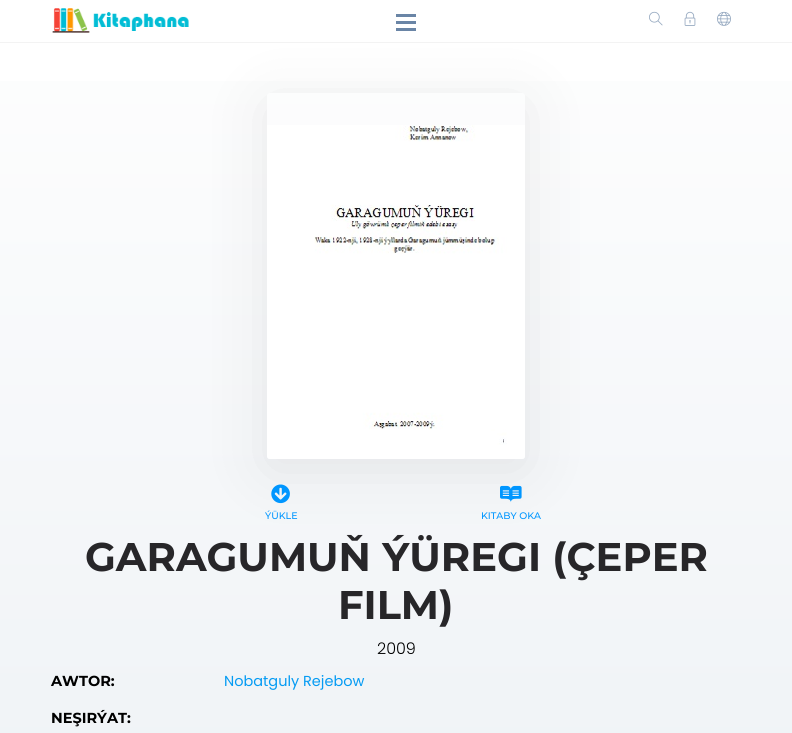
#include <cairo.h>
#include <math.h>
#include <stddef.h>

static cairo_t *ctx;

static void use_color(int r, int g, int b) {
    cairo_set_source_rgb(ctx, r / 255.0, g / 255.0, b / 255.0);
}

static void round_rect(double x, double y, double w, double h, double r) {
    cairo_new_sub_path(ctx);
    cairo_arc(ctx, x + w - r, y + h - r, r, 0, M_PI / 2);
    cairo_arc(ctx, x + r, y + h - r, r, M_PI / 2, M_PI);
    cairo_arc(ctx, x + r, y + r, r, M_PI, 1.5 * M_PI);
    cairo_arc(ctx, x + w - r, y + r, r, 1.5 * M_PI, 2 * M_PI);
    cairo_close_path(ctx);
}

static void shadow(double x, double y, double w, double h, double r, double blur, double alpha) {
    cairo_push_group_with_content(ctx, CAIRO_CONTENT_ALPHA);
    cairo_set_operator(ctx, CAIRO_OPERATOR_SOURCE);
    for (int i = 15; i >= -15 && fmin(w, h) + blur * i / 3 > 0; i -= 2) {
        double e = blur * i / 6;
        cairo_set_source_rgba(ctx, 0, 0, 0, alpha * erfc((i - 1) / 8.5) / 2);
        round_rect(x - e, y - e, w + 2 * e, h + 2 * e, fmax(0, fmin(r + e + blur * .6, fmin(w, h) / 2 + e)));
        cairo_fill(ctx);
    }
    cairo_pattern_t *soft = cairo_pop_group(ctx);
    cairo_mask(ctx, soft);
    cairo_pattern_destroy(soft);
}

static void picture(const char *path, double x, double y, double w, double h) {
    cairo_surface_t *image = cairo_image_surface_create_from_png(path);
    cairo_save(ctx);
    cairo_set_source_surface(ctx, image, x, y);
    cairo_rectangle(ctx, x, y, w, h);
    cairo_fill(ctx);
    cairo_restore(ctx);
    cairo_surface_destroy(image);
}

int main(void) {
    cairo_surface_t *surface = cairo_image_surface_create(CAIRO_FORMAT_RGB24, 792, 733);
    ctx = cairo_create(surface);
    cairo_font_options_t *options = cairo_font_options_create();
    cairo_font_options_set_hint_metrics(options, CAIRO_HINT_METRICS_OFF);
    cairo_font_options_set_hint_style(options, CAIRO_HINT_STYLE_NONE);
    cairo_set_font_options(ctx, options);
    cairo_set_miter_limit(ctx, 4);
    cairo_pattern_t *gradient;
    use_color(255, 255, 255);
    cairo_paint(ctx);
    gradient = cairo_pattern_create_linear(396, 0, 396, 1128);
    cairo_pattern_add_color_stop_rgba(gradient, 0, 0.996, 0.996, 0.996, 1);
    cairo_pattern_add_color_stop_rgba(gradient, 1, 0.914, 0.933, 0.953, 1);
    cairo_set_source(ctx, gradient);
    cairo_pattern_destroy(gradient);
    cairo_rectangle(ctx, 0, 81, 792, 652);
    cairo_fill(ctx);
    cairo_save(ctx);
    cairo_set_fill_rule(ctx, CAIRO_FILL_RULE_EVEN_ODD);
    cairo_new_path(ctx);
    cairo_move_to(ctx, 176, 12);
    cairo_line_to(ctx, 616, 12);
    cairo_line_to(ctx, 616, 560);
    cairo_line_to(ctx, 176, 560);
    cairo_close_path(ctx);
    cairo_move_to(ctx, 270, 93);
    cairo_line_to(ctx, 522, 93);
    cairo_curve_to(ctx, 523.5, 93, 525, 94.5, 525, 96);
    cairo_line_to(ctx, 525, 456);
    cairo_curve_to(ctx, 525, 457.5, 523.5, 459, 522, 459);
    cairo_line_to(ctx, 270, 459);
    cairo_curve_to(ctx, 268.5, 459, 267, 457.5, 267, 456);
    cairo_line_to(ctx, 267, 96);
    cairo_curve_to(ctx, 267, 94.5, 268.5, 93, 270, 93);
    cairo_close_path(ctx);
    cairo_clip(ctx);
    use_color(29, 29, 31);
    shadow(267, 103, 258, 366, 3, 30, 0.09);
    cairo_restore(ctx);
    use_color(243, 243, 243);
    cairo_rectangle(ctx, 0, 42, 792, 1);
    cairo_fill(ctx);
    picture("img1.png", 52, 8, 137, 25);
    use_color(106, 133, 166);
    cairo_rectangle(ctx, 396, 21, 20, 3);
    cairo_fill(ctx);
    cairo_rectangle(ctx, 396, 14, 20, 3);
    cairo_fill(ctx);
    cairo_rectangle(ctx, 396, 28, 20, 3);
    cairo_fill(ctx);
    picture("img2.png", 649, 11, 14, 15);
    picture("img3.png", 684, 11, 12, 15);
    picture("img4.png", 717, 11, 14, 15);
    picture("img5.png", 267, 125, 258, 334);
    picture("img6.png", 271, 484, 19, 20);
    cairo_select_font_face(ctx, "Montserrat Medium", CAIRO_FONT_SLANT_NORMAL, CAIRO_FONT_WEIGHT_NORMAL);
    cairo_set_font_size(ctx, 9.5);
    use_color(0, 150, 255);
    cairo_move_to(ctx, 265, 519);
    cairo_show_text(ctx, "ÝÜKLE");
    picture("img7.png", 500, 485, 22, 17);
    cairo_move_to(ctx, 481, 519);
    cairo_show_text(ctx, "KITABY OKA");
    cairo_select_font_face(ctx, "Montserrat", CAIRO_FONT_SLANT_NORMAL, CAIRO_FONT_WEIGHT_BOLD);
    cairo_set_font_size(ctx, 40);
    use_color(39, 38, 41);
    cairo_move_to(ctx, 85, 571);
    cairo_show_text(ctx, "GARAGUMUŇ ÝÜREGI (ÇEPER");
    cairo_move_to(ctx, 338, 619);
    cairo_show_text(ctx, "FILM)");
    cairo_select_font_face(ctx, "Poppins Light", CAIRO_FONT_SLANT_NORMAL, CAIRO_FONT_WEIGHT_NORMAL);
    cairo_set_font_size(ctx, 16);
    use_color(0, 0, 0);
    cairo_move_to(ctx, 377, 654);
    cairo_show_text(ctx, "2009");
    cairo_select_font_face(ctx, "Montserrat", CAIRO_FONT_SLANT_NORMAL, CAIRO_FONT_WEIGHT_BOLD);
    cairo_set_font_size(ctx, 14.5);
    cairo_move_to(ctx, 51, 686);
    cairo_show_text(ctx, "AWTOR:");
    cairo_select_font_face(ctx, "Poppins", CAIRO_FONT_SLANT_NORMAL, CAIRO_FONT_WEIGHT_NORMAL);
    use_color(5, 155, 243);
    cairo_move_to(ctx, 224, 686);
    cairo_show_text(ctx, "Nobatguly Rejebow");
    cairo_select_font_face(ctx, "Montserrat", CAIRO_FONT_SLANT_NORMAL, CAIRO_FONT_WEIGHT_BOLD);
    use_color(0, 0, 0);
    cairo_move_to(ctx, 51, 723);
    cairo_show_text(ctx, "NEŞIRÝAT:");
    cairo_surface_write_to_png(surface, "result.png");
    cairo_font_options_destroy(options);
    cairo_destroy(ctx);
    cairo_surface_destroy(surface);
    return 0;
}
